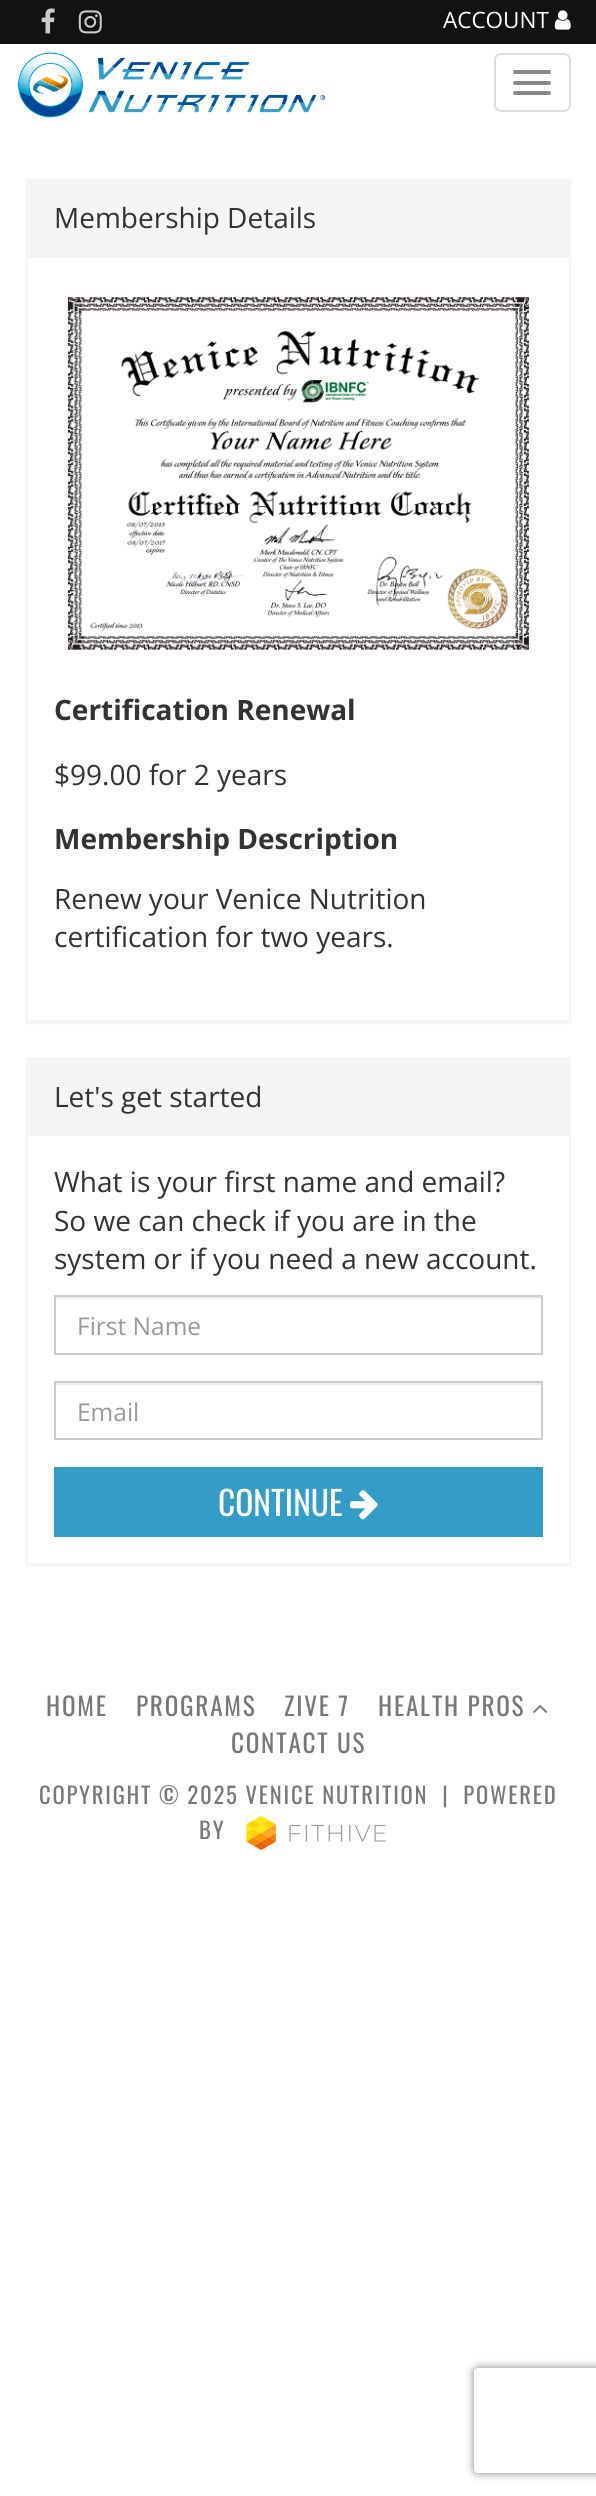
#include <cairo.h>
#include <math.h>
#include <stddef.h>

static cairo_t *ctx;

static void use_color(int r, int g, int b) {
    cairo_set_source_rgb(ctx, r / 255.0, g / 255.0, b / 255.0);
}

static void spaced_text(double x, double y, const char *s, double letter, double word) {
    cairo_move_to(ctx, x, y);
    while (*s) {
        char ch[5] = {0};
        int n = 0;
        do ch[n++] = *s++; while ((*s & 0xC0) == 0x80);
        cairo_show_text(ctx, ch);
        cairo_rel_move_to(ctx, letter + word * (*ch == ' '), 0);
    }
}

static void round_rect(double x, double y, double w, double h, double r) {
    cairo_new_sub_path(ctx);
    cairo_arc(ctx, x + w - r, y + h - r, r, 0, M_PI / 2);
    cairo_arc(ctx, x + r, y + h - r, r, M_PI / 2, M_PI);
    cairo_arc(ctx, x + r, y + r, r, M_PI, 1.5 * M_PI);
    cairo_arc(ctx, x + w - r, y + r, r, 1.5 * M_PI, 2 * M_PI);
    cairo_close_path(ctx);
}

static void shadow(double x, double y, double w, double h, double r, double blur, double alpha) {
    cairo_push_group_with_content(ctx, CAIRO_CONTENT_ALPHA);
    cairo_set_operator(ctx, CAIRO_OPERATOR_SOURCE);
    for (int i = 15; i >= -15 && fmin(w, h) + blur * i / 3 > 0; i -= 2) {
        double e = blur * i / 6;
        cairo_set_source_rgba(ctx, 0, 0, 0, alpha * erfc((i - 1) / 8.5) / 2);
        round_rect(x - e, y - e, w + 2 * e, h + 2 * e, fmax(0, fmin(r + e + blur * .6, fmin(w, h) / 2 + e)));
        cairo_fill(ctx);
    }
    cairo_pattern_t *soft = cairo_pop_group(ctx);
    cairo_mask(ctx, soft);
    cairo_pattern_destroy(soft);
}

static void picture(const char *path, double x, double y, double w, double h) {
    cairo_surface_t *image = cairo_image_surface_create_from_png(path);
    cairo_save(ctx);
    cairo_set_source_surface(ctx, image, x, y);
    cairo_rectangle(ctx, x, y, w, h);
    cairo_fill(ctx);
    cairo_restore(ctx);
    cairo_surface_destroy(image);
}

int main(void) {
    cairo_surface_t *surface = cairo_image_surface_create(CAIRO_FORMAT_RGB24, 596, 2496);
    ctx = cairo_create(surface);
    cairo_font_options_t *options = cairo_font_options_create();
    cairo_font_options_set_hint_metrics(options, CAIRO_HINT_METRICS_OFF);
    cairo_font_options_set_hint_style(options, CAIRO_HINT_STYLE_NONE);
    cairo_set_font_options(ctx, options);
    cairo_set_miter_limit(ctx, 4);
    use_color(255, 255, 255);
    cairo_paint(ctx);
    use_color(18, 18, 18);
    cairo_rectangle(ctx, 0, 0, 596, 44);
    cairo_fill(ctx);
    picture("img1.png", 41, 8, 14, 26);
    picture("img2.png", 78, 10, 24, 24);
    cairo_select_font_face(ctx, "Open Sans", CAIRO_FONT_SLANT_NORMAL, CAIRO_FONT_WEIGHT_NORMAL);
    cairo_set_font_size(ctx, 22.5);
    use_color(255, 255, 255);
    cairo_move_to(ctx, 443, 28);
    cairo_show_text(ctx, "ACCOUNT");
    picture("img3.png", 554, 10, 17, 20);
    picture("img4.png", 17, 52, 309, 66);
    round_rect(495, 54, 75, 57, 6);
    use_color(221, 221, 221);
    cairo_stroke(ctx);
    use_color(136, 136, 136);
    round_rect(513, 70, 38, 4, 2);
    cairo_fill(ctx);
    round_rect(513, 81, 38, 4, 2);
    cairo_fill(ctx);
    round_rect(513, 91, 38, 4, 2);
    cairo_fill(ctx);
    use_color(0, 0, 0);
    shadow(26, 180, 545, 844, 0, 1, 0.05);
    use_color(245, 245, 245);
    cairo_rectangle(ctx, 26, 179, 545, 77);
    cairo_fill(ctx);
    cairo_set_font_size(ctx, 28);
    use_color(51, 51, 51);
    cairo_move_to(ctx, 54, 228);
    cairo_show_text(ctx, "Membership Details");
    use_color(255, 255, 255);
    cairo_rectangle(ctx, 27, 257, 543, 764);
    cairo_fill_preserve(ctx);
    use_color(245, 245, 245);
    cairo_stroke(ctx);
    picture("img5.png", 67, 297, 462, 353);
    cairo_select_font_face(ctx, "Open Sans", CAIRO_FONT_SLANT_NORMAL, CAIRO_FONT_WEIGHT_BOLD);
    use_color(51, 51, 51);
    cairo_move_to(ctx, 54, 720);
    cairo_show_text(ctx, "Certification Renewal");
    cairo_select_font_face(ctx, "Open Sans", CAIRO_FONT_SLANT_NORMAL, CAIRO_FONT_WEIGHT_NORMAL);
    cairo_move_to(ctx, 54, 785);
    cairo_show_text(ctx, "$99.00 for 2 years");
    cairo_select_font_face(ctx, "Open Sans", CAIRO_FONT_SLANT_NORMAL, CAIRO_FONT_WEIGHT_BOLD);
    cairo_move_to(ctx, 54, 849);
    cairo_show_text(ctx, "Membership Description");
    cairo_select_font_face(ctx, "Open Sans", CAIRO_FONT_SLANT_NORMAL, CAIRO_FONT_WEIGHT_NORMAL);
    cairo_move_to(ctx, 54, 909);
    cairo_show_text(ctx, "Renew your Venice Nutrition");
    cairo_move_to(ctx, 54, 947);
    cairo_show_text(ctx, "certification for two years.");
    use_color(0, 0, 0);
    shadow(26, 1059, 545, 507, 0, 1, 0.05);
    use_color(245, 245, 245);
    cairo_rectangle(ctx, 26, 1057, 545, 77);
    cairo_fill(ctx);
    use_color(51, 51, 51);
    cairo_move_to(ctx, 54, 1107);
    cairo_show_text(ctx, "Let's get started");
    use_color(255, 255, 255);
    cairo_rectangle(ctx, 27, 1135, 543, 429);
    cairo_fill_preserve(ctx);
    use_color(245, 245, 245);
    cairo_stroke(ctx);
    use_color(51, 51, 51);
    cairo_move_to(ctx, 54, 1192);
    cairo_show_text(ctx, "What is your first name and email?");
    cairo_move_to(ctx, 54, 1231);
    cairo_show_text(ctx, "So we can check if you are in the");
    cairo_move_to(ctx, 54, 1269);
    cairo_show_text(ctx, "system or if you need a new account.");
    use_color(236, 236, 236);
    cairo_rectangle(ctx, 56, 1297, 485, 2);
    cairo_fill(ctx);
    cairo_rectangle(ctx, 55, 1296, 487, 58);
    use_color(204, 204, 204);
    cairo_stroke(ctx);
    cairo_set_font_size(ctx, 24.5);
    use_color(153, 153, 153);
    cairo_move_to(ctx, 77, 1335);
    cairo_show_text(ctx, "First Name");
    use_color(236, 236, 236);
    cairo_rectangle(ctx, 56, 1383, 485, 2);
    cairo_fill(ctx);
    cairo_rectangle(ctx, 55, 1382, 487, 57);
    use_color(204, 204, 204);
    cairo_stroke(ctx);
    use_color(153, 153, 153);
    cairo_move_to(ctx, 77, 1421);
    cairo_show_text(ctx, "Email");
    use_color(51, 157, 199);
    cairo_rectangle(ctx, 54, 1467, 489, 70);
    cairo_fill(ctx);
    cairo_select_font_face(ctx, "Oswald", CAIRO_FONT_SLANT_NORMAL, CAIRO_FONT_WEIGHT_NORMAL);
    cairo_set_font_size(ctx, 33.5);
    use_color(255, 255, 255);
    cairo_move_to(ctx, 218, 1516);
    cairo_show_text(ctx, "CONTINUE");
    picture("img6.png", 350, 1490, 28, 30);
    cairo_save(ctx);
    cairo_set_fill_rule(ctx, CAIRO_FILL_RULE_EVEN_ODD);
    cairo_new_path(ctx);
    cairo_move_to(ctx, 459, 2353);
    cairo_line_to(ctx, 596, 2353);
    cairo_line_to(ctx, 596, 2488);
    cairo_line_to(ctx, 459, 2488);
    cairo_close_path(ctx);
    cairo_move_to(ctx, 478, 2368);
    cairo_line_to(ctx, 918, 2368);
    cairo_curve_to(ctx, 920, 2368, 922, 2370, 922, 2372);
    cairo_line_to(ctx, 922, 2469);
    cairo_curve_to(ctx, 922, 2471, 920, 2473, 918, 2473);
    cairo_line_to(ctx, 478, 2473);
    cairo_curve_to(ctx, 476, 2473, 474, 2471, 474, 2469);
    cairo_line_to(ctx, 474, 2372);
    cairo_curve_to(ctx, 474, 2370, 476, 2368, 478, 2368);
    cairo_close_path(ctx);
    cairo_clip(ctx);
    use_color(128, 128, 128);
    shadow(474, 2368, 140, 105, 4, 4.5, 1);
    cairo_restore(ctx);
    cairo_set_font_size(ctx, 25.25);
    use_color(120, 120, 120);
    spaced_text(46, 1716, "HOME", 1.75, 0);
    spaced_text(136, 1716, "PROGRAMS", 1.75, 0);
    spaced_text(284, 1716, "ZIVE 7", 1.75, 0);
    spaced_text(378, 1716, "HEALTH PROS", 1.75, 0);
    picture("img7.png", 533, 1704, 15, 9);
    spaced_text(231, 1753, "CONTACT US", 1.75, 0);
    cairo_set_font_size(ctx, 22.7);
    spaced_text(39, 1804, "COPYRIGHT © 2025 VENICE NUTRITION  |  POWERED", 1.75, 0);
    spaced_text(199, 1839, "BY", 1.75, 0);
    picture("img8.png", 246, 1815, 140, 36);
    cairo_surface_write_to_png(surface, "result.png");
    cairo_font_options_destroy(options);
    cairo_destroy(ctx);
    cairo_surface_destroy(surface);
    return 0;
}
